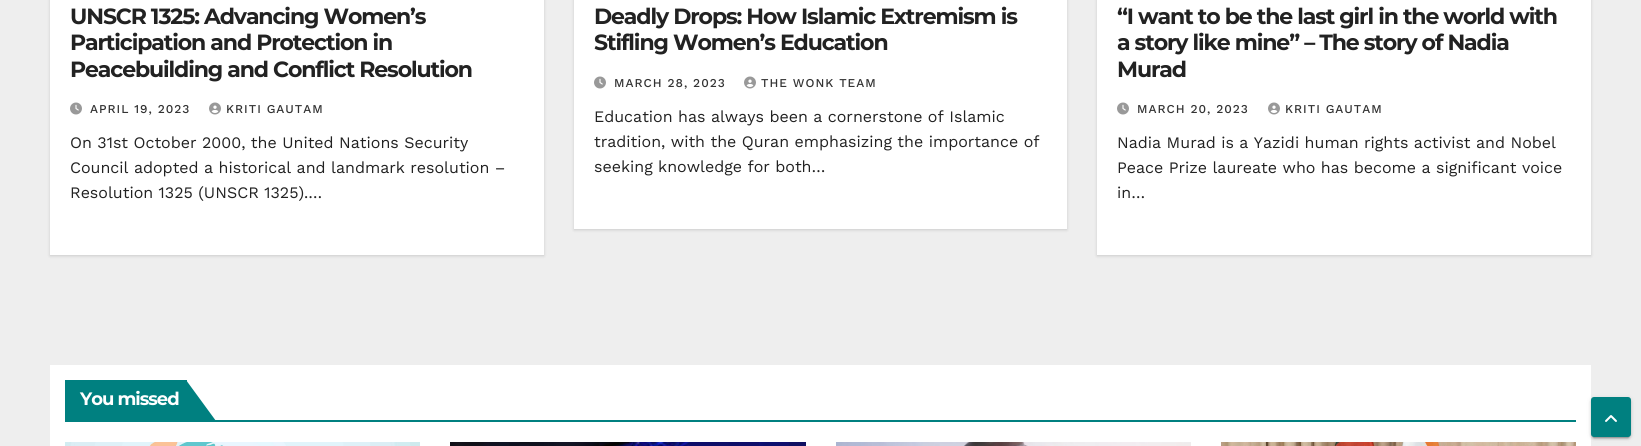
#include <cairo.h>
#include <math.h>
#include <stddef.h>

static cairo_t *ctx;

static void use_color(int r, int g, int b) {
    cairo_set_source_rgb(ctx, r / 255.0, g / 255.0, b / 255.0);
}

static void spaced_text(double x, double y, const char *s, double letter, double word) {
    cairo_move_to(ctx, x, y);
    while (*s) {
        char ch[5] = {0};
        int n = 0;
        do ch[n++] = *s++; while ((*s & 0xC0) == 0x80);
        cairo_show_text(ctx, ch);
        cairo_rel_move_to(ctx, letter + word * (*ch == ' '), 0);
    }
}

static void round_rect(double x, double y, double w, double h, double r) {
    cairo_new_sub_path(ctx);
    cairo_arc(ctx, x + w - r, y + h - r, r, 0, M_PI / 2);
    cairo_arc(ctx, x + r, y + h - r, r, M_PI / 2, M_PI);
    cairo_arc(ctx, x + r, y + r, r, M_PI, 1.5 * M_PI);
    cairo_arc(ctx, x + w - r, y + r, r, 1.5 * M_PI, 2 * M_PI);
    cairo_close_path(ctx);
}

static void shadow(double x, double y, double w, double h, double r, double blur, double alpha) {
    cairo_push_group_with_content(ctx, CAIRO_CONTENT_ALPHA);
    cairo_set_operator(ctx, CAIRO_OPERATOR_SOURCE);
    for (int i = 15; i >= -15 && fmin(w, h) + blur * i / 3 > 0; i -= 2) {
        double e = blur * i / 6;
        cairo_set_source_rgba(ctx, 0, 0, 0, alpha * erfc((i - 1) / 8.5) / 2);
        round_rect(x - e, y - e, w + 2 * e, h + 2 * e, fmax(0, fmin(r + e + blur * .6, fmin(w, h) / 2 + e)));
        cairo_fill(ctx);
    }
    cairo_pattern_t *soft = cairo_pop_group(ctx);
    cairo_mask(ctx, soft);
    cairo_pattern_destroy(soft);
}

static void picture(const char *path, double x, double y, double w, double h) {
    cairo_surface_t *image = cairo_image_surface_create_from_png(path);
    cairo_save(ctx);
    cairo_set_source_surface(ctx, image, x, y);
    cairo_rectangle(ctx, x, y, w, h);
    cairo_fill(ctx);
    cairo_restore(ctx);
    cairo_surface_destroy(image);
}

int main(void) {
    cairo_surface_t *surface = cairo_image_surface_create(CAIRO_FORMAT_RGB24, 1641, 446);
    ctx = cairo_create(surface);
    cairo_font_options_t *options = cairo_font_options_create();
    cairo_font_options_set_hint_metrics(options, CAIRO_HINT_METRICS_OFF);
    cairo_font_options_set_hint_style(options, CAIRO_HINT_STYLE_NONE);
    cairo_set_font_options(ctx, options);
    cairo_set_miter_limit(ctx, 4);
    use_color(238, 238, 238);
    cairo_paint(ctx);
    use_color(0, 0, 0);
    shadow(50, -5, 494, 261, 0, 1.5, 0.15);
    use_color(255, 255, 255);
    cairo_rectangle(ctx, 50, 0, 494, 255);
    cairo_fill(ctx);
    cairo_select_font_face(ctx, "Montserrat", CAIRO_FONT_SLANT_NORMAL, CAIRO_FONT_WEIGHT_BOLD);
    cairo_set_font_size(ctx, 22);
    use_color(34, 34, 34);
    spaced_text(70, 24, "UNSCR 1325: Advancing Women’s", -1.1, 0);
    spaced_text(70, 50, "Participation and Protection in", -1.1, 0);
    spaced_text(70, 77, "Peacebuilding and Conflict Resolution", -1.1, 0);
    picture("img1.png", 70, 102, 12, 13);
    cairo_select_font_face(ctx, "Work Sans Medium", CAIRO_FONT_SLANT_NORMAL, CAIRO_FONT_WEIGHT_NORMAL);
    cairo_set_font_size(ctx, 12);
    use_color(51, 51, 51);
    spaced_text(90, 113, "APRIL 19, 2023", 1, 0);
    picture("img2.png", 209, 102, 12, 13);
    spaced_text(226, 113, "KRITI GAUTAM", 1, 0);
    cairo_select_font_face(ctx, "Work Sans", CAIRO_FONT_SLANT_NORMAL, CAIRO_FONT_WEIGHT_NORMAL);
    cairo_set_font_size(ctx, 16);
    use_color(34, 34, 34);
    cairo_move_to(ctx, 70, 148);
    cairo_show_text(ctx, "On 31st October 2000, the United Nations Security");
    cairo_move_to(ctx, 70, 173);
    cairo_show_text(ctx, "Council adopted a historical and landmark resolution –");
    cairo_move_to(ctx, 70, 198);
    cairo_show_text(ctx, "Resolution 1325 (UNSCR 1325).…");
    use_color(0, 0, 0);
    shadow(574, -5, 493, 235, 0, 1.5, 0.15);
    use_color(255, 255, 255);
    cairo_rectangle(ctx, 574, 0, 493, 229);
    cairo_fill(ctx);
    cairo_select_font_face(ctx, "Montserrat", CAIRO_FONT_SLANT_NORMAL, CAIRO_FONT_WEIGHT_BOLD);
    cairo_set_font_size(ctx, 22);
    use_color(34, 34, 34);
    spaced_text(594, 24, "Deadly Drops: How Islamic Extremism is", -1.1, 0);
    spaced_text(594, 50, "Stifling Women’s Education", -1.1, 0);
    picture("img1.png", 594, 76, 12, 13);
    cairo_select_font_face(ctx, "Work Sans Medium", CAIRO_FONT_SLANT_NORMAL, CAIRO_FONT_WEIGHT_NORMAL);
    cairo_set_font_size(ctx, 12);
    use_color(51, 51, 51);
    spaced_text(614, 87, "MARCH 28, 2023", 1, 0);
    picture("img2.png", 744, 76, 12, 13);
    spaced_text(761, 87, "THE WONK TEAM", 1, 0);
    cairo_select_font_face(ctx, "Work Sans", CAIRO_FONT_SLANT_NORMAL, CAIRO_FONT_WEIGHT_NORMAL);
    cairo_set_font_size(ctx, 16);
    use_color(34, 34, 34);
    cairo_move_to(ctx, 594, 122);
    cairo_show_text(ctx, "Education has always been a cornerstone of Islamic");
    cairo_move_to(ctx, 594, 147);
    cairo_show_text(ctx, "tradition, with the Quran emphasizing the importance of");
    cairo_move_to(ctx, 594, 172);
    cairo_show_text(ctx, "seeking knowledge for both…");
    use_color(0, 0, 0);
    shadow(1097, -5, 494, 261, 0, 1.5, 0.15);
    use_color(255, 255, 255);
    cairo_rectangle(ctx, 1097, 0, 494, 255);
    cairo_fill(ctx);
    cairo_select_font_face(ctx, "Montserrat", CAIRO_FONT_SLANT_NORMAL, CAIRO_FONT_WEIGHT_BOLD);
    cairo_set_font_size(ctx, 22);
    use_color(34, 34, 34);
    spaced_text(1117, 24, "“I want to be the last girl in the world with", -1.1, 0);
    spaced_text(1117, 50, "a story like mine” – The story of Nadia", -1.1, 0);
    spaced_text(1117, 77, "Murad", -1.1, 0);
    picture("img1.png", 1117, 102, 12, 13);
    cairo_select_font_face(ctx, "Work Sans Medium", CAIRO_FONT_SLANT_NORMAL, CAIRO_FONT_WEIGHT_NORMAL);
    cairo_set_font_size(ctx, 12);
    use_color(51, 51, 51);
    spaced_text(1137, 113, "MARCH 20, 2023", 1, 0);
    picture("img2.png", 1268, 102, 12, 13);
    spaced_text(1285, 113, "KRITI GAUTAM", 1, 0);
    cairo_select_font_face(ctx, "Work Sans", CAIRO_FONT_SLANT_NORMAL, CAIRO_FONT_WEIGHT_NORMAL);
    cairo_set_font_size(ctx, 16);
    use_color(34, 34, 34);
    cairo_move_to(ctx, 1117, 148);
    cairo_show_text(ctx, "Nadia Murad is a Yazidi human rights activist and Nobel");
    cairo_move_to(ctx, 1117, 173);
    cairo_show_text(ctx, "Peace Prize laureate who has become a significant voice");
    cairo_move_to(ctx, 1117, 198);
    cairo_show_text(ctx, "in…");
    use_color(255, 255, 255);
    cairo_rectangle(ctx, 50, 365, 1541, 81);
    cairo_fill(ctx);
    use_color(0, 128, 128);
    cairo_rectangle(ctx, 65, 420, 1511, 2);
    cairo_fill(ctx);
    cairo_rectangle(ctx, 65, 380, 122, 40);
    cairo_fill(ctx);
    cairo_select_font_face(ctx, "Montserrat", CAIRO_FONT_SLANT_NORMAL, CAIRO_FONT_WEIGHT_BOLD);
    cairo_set_font_size(ctx, 18);
    use_color(255, 255, 255);
    spaced_text(80, 405, "You missed", -1, 0);
    use_color(0, 128, 128);
    cairo_new_path(ctx);
    cairo_move_to(ctx, 186, 380);
    cairo_line_to(ctx, 186, 421);
    cairo_line_to(ctx, 216, 421);
    cairo_close_path(ctx);
    cairo_fill(ctx);
    picture("img3.png", 65, 442, 355, 4);
    picture("img4.png", 450, 442, 356, 4);
    picture("img5.png", 836, 442, 355, 4);
    picture("img6.png", 1221, 442, 355, 4);
    use_color(0, 0, 0);
    shadow(1591, 398, 40, 40, 3, 2.5, 0.12);
    shadow(1593, 402, 36, 36, 1, 0.5, 0.2);
    shadow(1591, 399, 40, 40, 3, 1, 0.14);
    use_color(0, 128, 128);
    round_rect(1592, 398, 38, 38, 2);
    cairo_fill_preserve(ctx);
    cairo_stroke(ctx);
    picture("img7.png", 1605, 415, 12, 7);
    cairo_surface_write_to_png(surface, "result.png");
    cairo_font_options_destroy(options);
    cairo_destroy(ctx);
    cairo_surface_destroy(surface);
    return 0;
}
